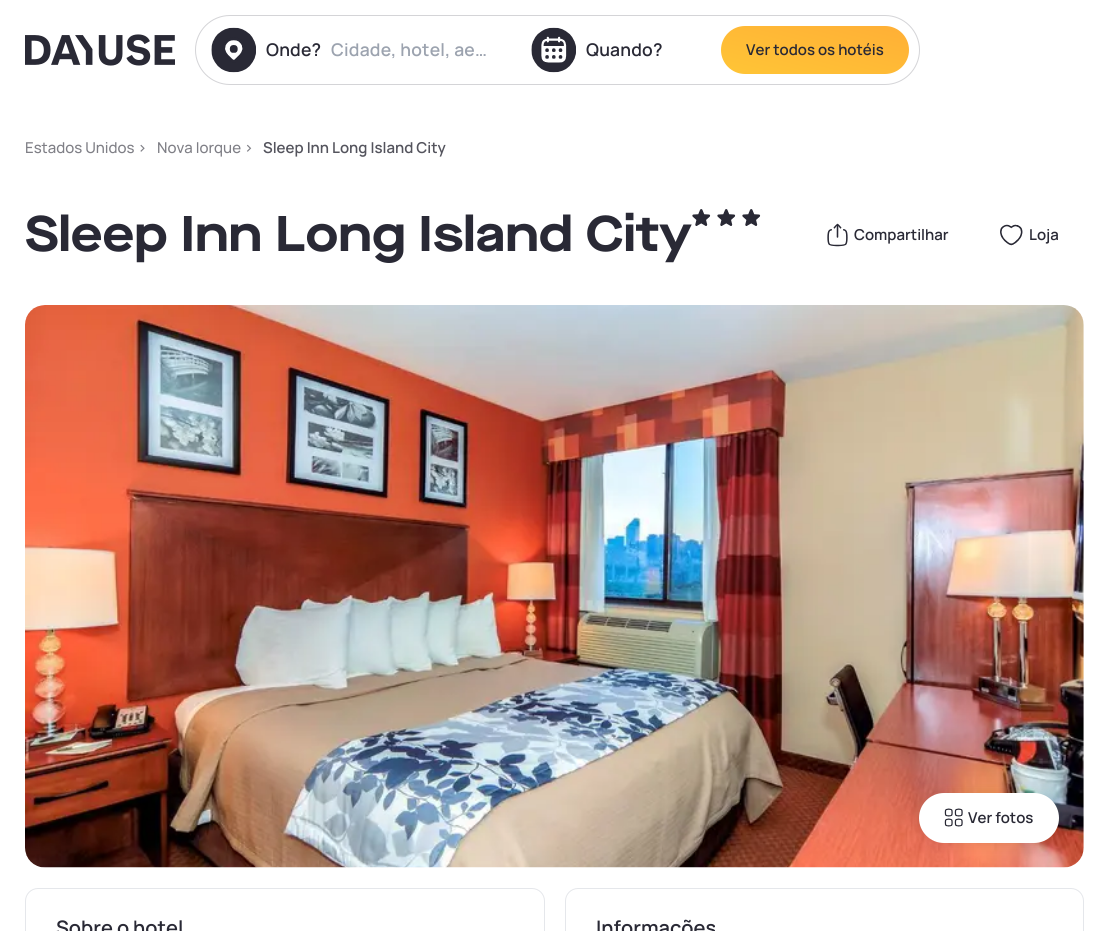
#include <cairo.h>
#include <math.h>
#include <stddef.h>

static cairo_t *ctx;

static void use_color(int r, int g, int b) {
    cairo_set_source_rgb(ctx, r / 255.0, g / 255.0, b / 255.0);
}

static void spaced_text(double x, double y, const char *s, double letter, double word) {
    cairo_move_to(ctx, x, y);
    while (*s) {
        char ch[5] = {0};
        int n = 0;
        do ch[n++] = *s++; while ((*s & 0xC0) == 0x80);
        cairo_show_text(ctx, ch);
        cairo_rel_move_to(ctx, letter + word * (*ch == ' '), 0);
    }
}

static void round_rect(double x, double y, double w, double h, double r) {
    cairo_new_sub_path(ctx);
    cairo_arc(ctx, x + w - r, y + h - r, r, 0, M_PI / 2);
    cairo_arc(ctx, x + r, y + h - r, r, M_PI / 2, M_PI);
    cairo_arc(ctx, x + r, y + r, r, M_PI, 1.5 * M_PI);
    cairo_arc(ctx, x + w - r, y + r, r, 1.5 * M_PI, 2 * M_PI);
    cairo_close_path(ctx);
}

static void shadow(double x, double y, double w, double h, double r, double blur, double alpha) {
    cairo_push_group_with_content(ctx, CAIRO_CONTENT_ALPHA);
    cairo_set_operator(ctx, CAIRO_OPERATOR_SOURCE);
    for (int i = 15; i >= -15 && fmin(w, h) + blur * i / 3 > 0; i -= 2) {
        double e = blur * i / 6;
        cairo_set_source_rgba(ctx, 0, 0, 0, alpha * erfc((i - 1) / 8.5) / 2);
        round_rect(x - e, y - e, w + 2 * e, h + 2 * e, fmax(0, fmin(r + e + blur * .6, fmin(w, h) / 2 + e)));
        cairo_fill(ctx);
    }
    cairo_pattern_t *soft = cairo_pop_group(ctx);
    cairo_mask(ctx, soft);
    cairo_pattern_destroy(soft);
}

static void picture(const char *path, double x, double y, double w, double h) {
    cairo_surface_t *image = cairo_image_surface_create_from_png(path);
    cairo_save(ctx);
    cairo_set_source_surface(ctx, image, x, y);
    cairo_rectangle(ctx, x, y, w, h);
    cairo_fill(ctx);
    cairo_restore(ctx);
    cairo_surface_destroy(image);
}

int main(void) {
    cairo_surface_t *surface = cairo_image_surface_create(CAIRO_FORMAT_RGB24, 1108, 931);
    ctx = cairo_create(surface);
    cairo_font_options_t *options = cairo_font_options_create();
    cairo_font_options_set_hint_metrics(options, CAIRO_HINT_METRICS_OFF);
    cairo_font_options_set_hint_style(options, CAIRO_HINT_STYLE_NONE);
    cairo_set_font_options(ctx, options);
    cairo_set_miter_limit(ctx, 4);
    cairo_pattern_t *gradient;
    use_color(255, 255, 255);
    cairo_paint(ctx);
    picture("img1.png", 25, 34, 150, 32);
    round_rect(195.5, 15.5, 724, 69, 34.5);
    use_color(212, 212, 215);
    cairo_set_line_width(ctx, 1);
    cairo_stroke(ctx);
    picture("img2.png", 211, 27, 45, 46);
    cairo_select_font_face(ctx, "Manrope SemiBold", CAIRO_FONT_SLANT_NORMAL, CAIRO_FONT_WEIGHT_NORMAL);
    cairo_set_font_size(ctx, 17.5);
    use_color(41, 41, 53);
    spaced_text(266, 56, "Onde?", 0.2, 0);
    use_color(156, 163, 175);
    spaced_text(331, 56, "Cidade, hotel, ae…", 0.2, 0);
    picture("img3.png", 531, 27, 45, 46);
    use_color(41, 41, 53);
    spaced_text(586, 56, "Quando?", 0.2, 0);
    gradient = cairo_pattern_create_linear(826, 5.4, 804, 95);
    cairo_pattern_add_color_stop_rgba(gradient, 0, 1, 0.686, 0.212, 1);
    cairo_pattern_add_color_stop_rgba(gradient, 1, 1, 0.773, 0.212, 1);
    cairo_set_source(ctx, gradient);
    cairo_pattern_destroy(gradient);
    round_rect(721, 26, 188, 48, 24);
    cairo_fill(ctx);
    cairo_set_font_size(ctx, 15);
    use_color(41, 41, 53);
    cairo_move_to(ctx, 746, 55);
    cairo_show_text(ctx, "Ver todos os hotéis");
    cairo_select_font_face(ctx, "Manrope Medium", CAIRO_FONT_SLANT_NORMAL, CAIRO_FONT_WEIGHT_NORMAL);
    use_color(127, 127, 134);
    cairo_move_to(ctx, 25, 153);
    cairo_show_text(ctx, "Estados Unidos >");
    cairo_move_to(ctx, 157, 153);
    cairo_show_text(ctx, "Nova Iorque >");
    cairo_select_font_face(ctx, "Manrope SemiBold", CAIRO_FONT_SLANT_NORMAL, CAIRO_FONT_WEIGHT_NORMAL);
    use_color(84, 84, 93);
    cairo_move_to(ctx, 263, 153);
    cairo_show_text(ctx, "Sleep Inn Long Island City");
    cairo_select_font_face(ctx, "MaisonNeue", CAIRO_FONT_SLANT_NORMAL, CAIRO_FONT_WEIGHT_BOLD);
    cairo_set_font_size(ctx, 50);
    use_color(41, 41, 53);
    cairo_move_to(ctx, 25, 251);
    cairo_show_text(ctx, "Sleep Inn Long Island City");
    picture("img4.png", 692, 209, 19, 17);
    picture("img4.png", 717, 209, 19, 17);
    picture("img4.png", 742, 209, 19, 17);
    picture("img5.png", 827, 223, 21, 24);
    cairo_select_font_face(ctx, "Manrope SemiBold", CAIRO_FONT_SLANT_NORMAL, CAIRO_FONT_WEIGHT_NORMAL);
    cairo_set_font_size(ctx, 15);
    cairo_move_to(ctx, 854, 240);
    cairo_show_text(ctx, "Compartilhar");
    picture("img6.png", 1000, 224, 23, 22);
    cairo_move_to(ctx, 1029, 240);
    cairo_show_text(ctx, "Loja");
    picture("img7.png", 25, 305, 1059, 563);
    use_color(0, 0, 0);
    shadow(919, 793, 140, 50, 25, 6, 0.1);
    use_color(255, 255, 255);
    round_rect(919, 793, 140, 50, 25);
    cairo_fill(ctx);
    picture("img8.png", 944, 808, 19, 19);
    use_color(41, 41, 53);
    cairo_move_to(ctx, 968, 823);
    cairo_show_text(ctx, "Ver fotos");
    round_rect(25.5, 888.5, 519, 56, 12.5);
    use_color(229, 231, 235);
    cairo_stroke(ctx);
    cairo_set_font_size(ctx, 20);
    use_color(41, 41, 53);
    cairo_move_to(ctx, 56, 935);
    cairo_show_text(ctx, "Sobre o hotel");
    round_rect(565.5, 888.5, 518, 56, 12.5);
    use_color(229, 231, 235);
    cairo_stroke(ctx);
    use_color(41, 41, 53);
    cairo_move_to(ctx, 596, 935);
    cairo_show_text(ctx, "Informações");
    cairo_surface_write_to_png(surface, "result.png");
    cairo_font_options_destroy(options);
    cairo_destroy(ctx);
    cairo_surface_destroy(surface);
    return 0;
}
